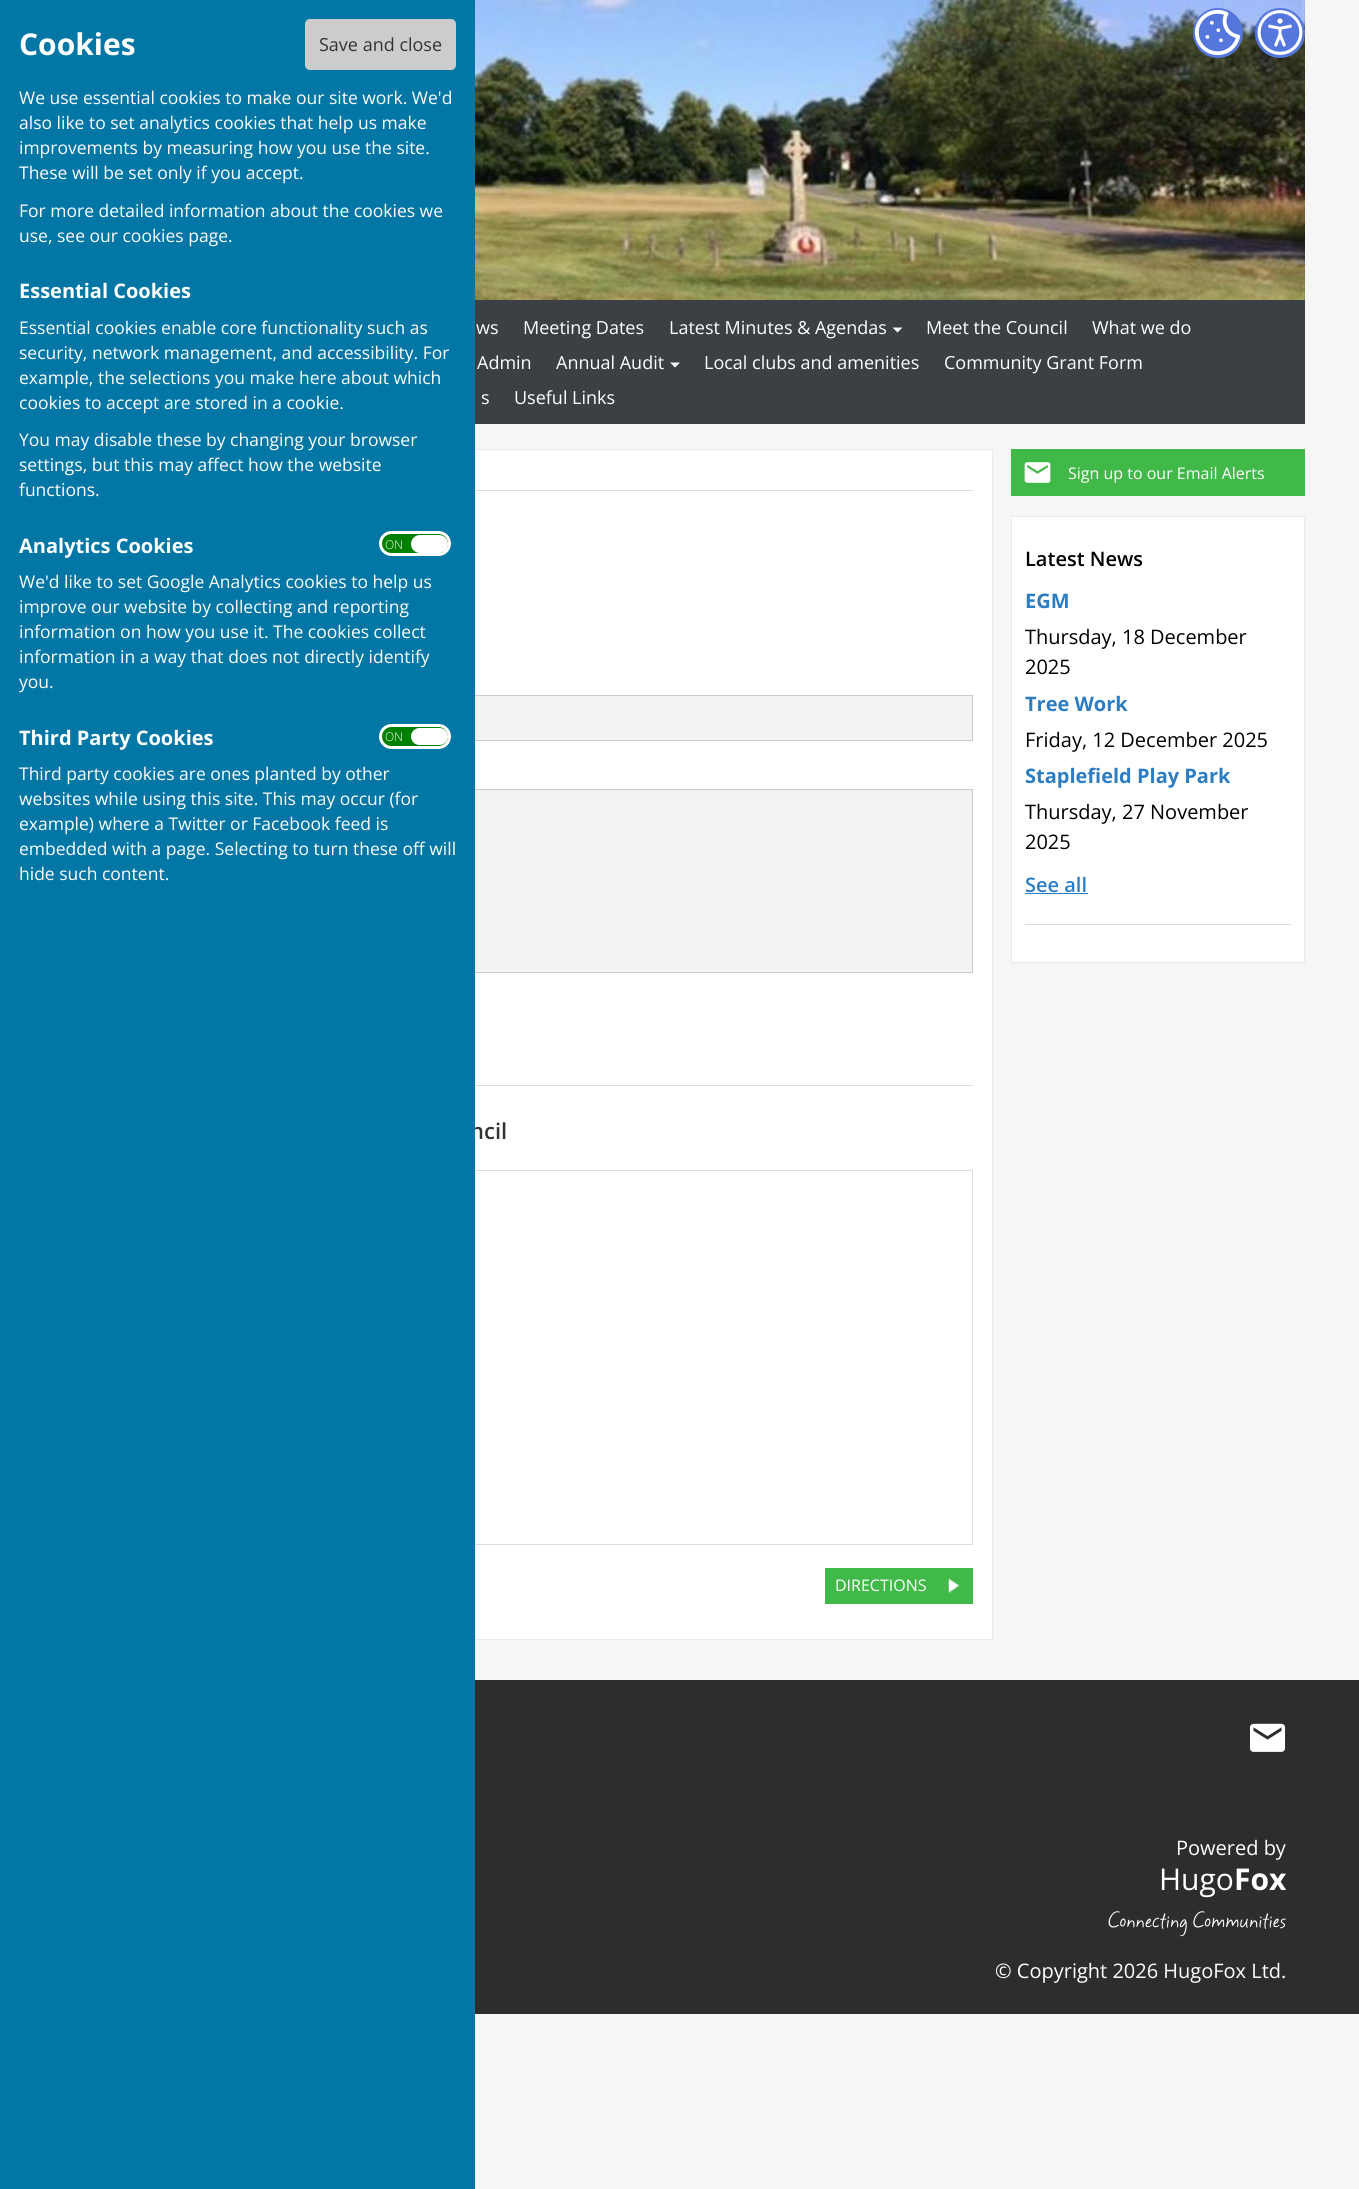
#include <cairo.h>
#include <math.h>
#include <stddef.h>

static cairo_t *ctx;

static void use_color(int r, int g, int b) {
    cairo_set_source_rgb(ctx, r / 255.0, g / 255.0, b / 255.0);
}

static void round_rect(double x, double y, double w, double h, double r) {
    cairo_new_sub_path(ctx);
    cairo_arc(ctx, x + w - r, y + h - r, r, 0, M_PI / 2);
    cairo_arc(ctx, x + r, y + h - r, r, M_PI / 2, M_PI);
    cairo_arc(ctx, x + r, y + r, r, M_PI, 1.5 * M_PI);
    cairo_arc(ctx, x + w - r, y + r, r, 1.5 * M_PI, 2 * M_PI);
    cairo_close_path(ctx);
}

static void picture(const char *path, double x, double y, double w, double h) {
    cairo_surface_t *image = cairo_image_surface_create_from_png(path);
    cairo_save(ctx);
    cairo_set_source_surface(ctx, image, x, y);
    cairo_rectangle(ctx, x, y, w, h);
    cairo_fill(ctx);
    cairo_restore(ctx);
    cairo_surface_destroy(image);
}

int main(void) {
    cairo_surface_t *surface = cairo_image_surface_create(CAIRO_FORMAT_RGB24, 1359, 2189);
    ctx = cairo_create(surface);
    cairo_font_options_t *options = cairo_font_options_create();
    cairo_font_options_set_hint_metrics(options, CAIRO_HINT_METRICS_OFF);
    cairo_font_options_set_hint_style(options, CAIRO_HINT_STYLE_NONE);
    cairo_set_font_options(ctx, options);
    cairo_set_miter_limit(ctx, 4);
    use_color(246, 246, 246);
    cairo_paint(ctx);
    use_color(255, 255, 255);
    cairo_rectangle(ctx, 475, 450, 517, 1189);
    cairo_fill(ctx);
    cairo_rectangle(ctx, 55.5, 449.5, 937, 1190);
    use_color(234, 234, 234);
    cairo_set_line_width(ctx, 1);
    cairo_stroke(ctx);
    use_color(243, 243, 243);
    cairo_rectangle(ctx, 475, 696, 497, 44);
    cairo_fill(ctx);
    cairo_rectangle(ctx, 75.5, 695.5, 897, 45);
    use_color(204, 204, 204);
    cairo_stroke(ctx);
    use_color(243, 243, 243);
    cairo_rectangle(ctx, 475, 790, 497, 182);
    cairo_fill(ctx);
    cairo_rectangle(ctx, 75.5, 789.5, 897, 183);
    use_color(204, 204, 204);
    cairo_stroke(ctx);
    cairo_select_font_face(ctx, "Open Sans SemiBold", CAIRO_FONT_SLANT_NORMAL, CAIRO_FONT_WEIGHT_NORMAL);
    cairo_set_font_size(ctx, 22);
    use_color(51, 51, 51);
    cairo_move_to(ctx, 470, 1139);
    cairo_show_text(ctx, "ncil");
    cairo_rectangle(ctx, 75.5, 1170.5, 897, 374);
    use_color(221, 221, 221);
    cairo_stroke(ctx);
    use_color(2, 118, 165);
    cairo_rectangle(ctx, 0, 0, 475, 2189);
    cairo_fill(ctx);
    cairo_select_font_face(ctx, "Open Sans", CAIRO_FONT_SLANT_NORMAL, CAIRO_FONT_WEIGHT_BOLD);
    cairo_set_font_size(ctx, 30);
    use_color(255, 255, 255);
    cairo_move_to(ctx, 19, 55);
    cairo_show_text(ctx, "Cookies");
    use_color(204, 204, 204);
    round_rect(305, 19, 151, 51, 5);
    cairo_fill(ctx);
    cairo_select_font_face(ctx, "Open Sans", CAIRO_FONT_SLANT_NORMAL, CAIRO_FONT_WEIGHT_NORMAL);
    cairo_set_font_size(ctx, 18);
    use_color(51, 51, 51);
    cairo_move_to(ctx, 319, 51);
    cairo_show_text(ctx, "Save and close");
    cairo_set_font_size(ctx, 17.5);
    use_color(255, 255, 255);
    cairo_move_to(ctx, 19, 104);
    cairo_show_text(ctx, "We use essential cookies to make our site work. We'd");
    cairo_move_to(ctx, 19, 129);
    cairo_show_text(ctx, "also like to set analytics cookies that help us make");
    cairo_move_to(ctx, 19, 154);
    cairo_show_text(ctx, "improvements by measuring how you use the site.");
    cairo_move_to(ctx, 19, 179);
    cairo_show_text(ctx, "These will be set only if you accept.");
    cairo_move_to(ctx, 19, 217);
    cairo_show_text(ctx, "For more detailed information about the cookies we");
    cairo_move_to(ctx, 19, 242);
    cairo_show_text(ctx, "use, see our cookies page.");
    cairo_select_font_face(ctx, "Open Sans", CAIRO_FONT_SLANT_NORMAL, CAIRO_FONT_WEIGHT_BOLD);
    cairo_set_font_size(ctx, 20);
    cairo_move_to(ctx, 19, 298);
    cairo_show_text(ctx, "Essential Cookies");
    cairo_select_font_face(ctx, "Open Sans", CAIRO_FONT_SLANT_NORMAL, CAIRO_FONT_WEIGHT_NORMAL);
    cairo_set_font_size(ctx, 17.5);
    cairo_move_to(ctx, 19, 334);
    cairo_show_text(ctx, "Essential cookies enable core functionality such as");
    cairo_move_to(ctx, 19, 359);
    cairo_show_text(ctx, "security, network management, and accessibility. For");
    cairo_move_to(ctx, 19, 384);
    cairo_show_text(ctx, "example, the selections you make here about which");
    cairo_move_to(ctx, 19, 409);
    cairo_show_text(ctx, "cookies to accept are stored in a cookie.");
    cairo_move_to(ctx, 19, 446);
    cairo_show_text(ctx, "You may disable these by changing your browser");
    cairo_move_to(ctx, 19, 471);
    cairo_show_text(ctx, "settings, but this may affect how the website");
    cairo_move_to(ctx, 19, 496);
    cairo_show_text(ctx, "functions.");
    cairo_select_font_face(ctx, "Open Sans", CAIRO_FONT_SLANT_NORMAL, CAIRO_FONT_WEIGHT_BOLD);
    cairo_set_font_size(ctx, 20);
    cairo_move_to(ctx, 19, 553);
    cairo_show_text(ctx, "Analytics Cookies");
    use_color(0, 128, 0);
    round_rect(380.5, 532.5, 69, 22, 11);
    cairo_fill_preserve(ctx);
    use_color(255, 255, 255);
    cairo_set_line_width(ctx, 3);
    cairo_stroke(ctx);
    cairo_select_font_face(ctx, "Open Sans Light", CAIRO_FONT_SLANT_NORMAL, CAIRO_FONT_WEIGHT_NORMAL);
    cairo_set_font_size(ctx, 12);
    cairo_move_to(ctx, 385, 549);
    cairo_show_text(ctx, "ON");
    round_rect(411, 535, 37, 18, 9);
    cairo_fill(ctx);
    cairo_select_font_face(ctx, "Open Sans", CAIRO_FONT_SLANT_NORMAL, CAIRO_FONT_WEIGHT_NORMAL);
    cairo_set_font_size(ctx, 17.5);
    cairo_move_to(ctx, 19, 588);
    cairo_show_text(ctx, "We'd like to set Google Analytics cookies to help us");
    cairo_move_to(ctx, 19, 613);
    cairo_show_text(ctx, "improve our website by collecting and reporting");
    cairo_move_to(ctx, 19, 638);
    cairo_show_text(ctx, "information on how you use it. The cookies collect");
    cairo_move_to(ctx, 19, 663);
    cairo_show_text(ctx, "information in a way that does not directly identify");
    cairo_move_to(ctx, 19, 688);
    cairo_show_text(ctx, "you.");
    cairo_select_font_face(ctx, "Open Sans", CAIRO_FONT_SLANT_NORMAL, CAIRO_FONT_WEIGHT_BOLD);
    cairo_set_font_size(ctx, 20);
    cairo_move_to(ctx, 19, 745);
    cairo_show_text(ctx, "Third Party Cookies");
    use_color(0, 128, 0);
    round_rect(380.5, 725.5, 69, 22, 11);
    cairo_fill_preserve(ctx);
    use_color(255, 255, 255);
    cairo_stroke(ctx);
    cairo_select_font_face(ctx, "Open Sans Light", CAIRO_FONT_SLANT_NORMAL, CAIRO_FONT_WEIGHT_NORMAL);
    cairo_set_font_size(ctx, 12);
    cairo_move_to(ctx, 385, 741);
    cairo_show_text(ctx, "ON");
    round_rect(411, 728, 37, 17, 8.5);
    cairo_fill(ctx);
    cairo_select_font_face(ctx, "Open Sans", CAIRO_FONT_SLANT_NORMAL, CAIRO_FONT_WEIGHT_NORMAL);
    cairo_set_font_size(ctx, 17.5);
    cairo_move_to(ctx, 19, 780);
    cairo_show_text(ctx, "Third party cookies are ones planted by other");
    cairo_move_to(ctx, 19, 805);
    cairo_show_text(ctx, "websites while using this site. This may occur (for");
    cairo_move_to(ctx, 19, 830);
    cairo_show_text(ctx, "example) where a Twitter or Facebook feed is");
    cairo_move_to(ctx, 19, 855);
    cairo_show_text(ctx, "embedded with a page. Selecting to turn these off will");
    cairo_move_to(ctx, 19, 880);
    cairo_show_text(ctx, "hide such content.");
    picture("img1.png", 475, 0, 830, 300);
    use_color(85, 119, 221);
    cairo_arc(ctx, 1218, 33, 25, 0, 2 * M_PI);
    cairo_fill(ctx);
    picture("img2.png", 1194, 9, 47, 47);
    cairo_arc(ctx, 1280, 33, 25, 0, 2 * M_PI);
    cairo_fill(ctx);
    picture("img3.png", 1257, 10, 46, 45);
    use_color(59, 64, 68);
    cairo_rectangle(ctx, 475, 300, 830, 124);
    cairo_fill(ctx);
    cairo_set_font_size(ctx, 18);
    use_color(255, 255, 255);
    cairo_move_to(ctx, 476, 334);
    cairo_show_text(ctx, "ws");
    cairo_move_to(ctx, 523, 334);
    cairo_show_text(ctx, "Meeting Dates");
    cairo_move_to(ctx, 669, 334);
    cairo_show_text(ctx, "Latest Minutes & Agendas");
    cairo_new_path(ctx);
    cairo_move_to(ctx, 892.5, 327.5);
    cairo_line_to(ctx, 902.5, 327.5);
    cairo_line_to(ctx, 897.5, 332.5);
    cairo_close_path(ctx);
    cairo_fill(ctx);
    cairo_move_to(ctx, 926, 334);
    cairo_show_text(ctx, "Meet the Council");
    cairo_move_to(ctx, 1092, 334);
    cairo_show_text(ctx, "What we do");
    cairo_move_to(ctx, 477, 369);
    cairo_show_text(ctx, "Admin");
    cairo_move_to(ctx, 556, 369);
    cairo_show_text(ctx, "Annual Audit");
    cairo_new_path(ctx);
    cairo_move_to(ctx, 670, 362.5);
    cairo_line_to(ctx, 680, 362.5);
    cairo_line_to(ctx, 675, 367.5);
    cairo_close_path(ctx);
    cairo_fill(ctx);
    cairo_move_to(ctx, 704, 369);
    cairo_show_text(ctx, "Local clubs and amenities");
    cairo_move_to(ctx, 944, 369);
    cairo_show_text(ctx, "Community Grant Form");
    cairo_move_to(ctx, 481, 404);
    cairo_show_text(ctx, "s");
    cairo_move_to(ctx, 514, 404);
    cairo_show_text(ctx, "Useful Links");
    use_color(65, 185, 73);
    cairo_rectangle(ctx, 1011, 449, 294, 47);
    cairo_fill(ctx);
    picture("img4.png", 1024, 462, 27, 21);
    cairo_set_font_size(ctx, 16);
    use_color(255, 255, 255);
    cairo_move_to(ctx, 1068, 479);
    cairo_show_text(ctx, "Sign up to our Email Alerts");
    cairo_rectangle(ctx, 1011.5, 516.5, 293, 446);
    cairo_fill_preserve(ctx);
    use_color(234, 234, 234);
    cairo_set_line_width(ctx, 1);
    cairo_stroke(ctx);
    cairo_select_font_face(ctx, "Open Sans SemiBold", CAIRO_FONT_SLANT_NORMAL, CAIRO_FONT_WEIGHT_NORMAL);
    cairo_set_font_size(ctx, 20);
    use_color(0, 0, 0);
    cairo_move_to(ctx, 1025, 566);
    cairo_show_text(ctx, "Latest News");
    cairo_select_font_face(ctx, "Open Sans", CAIRO_FONT_SLANT_NORMAL, CAIRO_FONT_WEIGHT_BOLD);
    use_color(45, 125, 194);
    cairo_move_to(ctx, 1025, 608);
    cairo_show_text(ctx, "EGM");
    cairo_select_font_face(ctx, "Open Sans", CAIRO_FONT_SLANT_NORMAL, CAIRO_FONT_WEIGHT_NORMAL);
    use_color(0, 0, 0);
    cairo_move_to(ctx, 1025, 644);
    cairo_show_text(ctx, "Thursday, 18 December");
    cairo_move_to(ctx, 1025, 674);
    cairo_show_text(ctx, "2025");
    cairo_select_font_face(ctx, "Open Sans", CAIRO_FONT_SLANT_NORMAL, CAIRO_FONT_WEIGHT_BOLD);
    use_color(45, 125, 194);
    cairo_move_to(ctx, 1025, 711);
    cairo_show_text(ctx, "Tree Work");
    cairo_select_font_face(ctx, "Open Sans", CAIRO_FONT_SLANT_NORMAL, CAIRO_FONT_WEIGHT_NORMAL);
    use_color(0, 0, 0);
    cairo_move_to(ctx, 1025, 747);
    cairo_show_text(ctx, "Friday, 12 December 2025");
    cairo_select_font_face(ctx, "Open Sans", CAIRO_FONT_SLANT_NORMAL, CAIRO_FONT_WEIGHT_BOLD);
    use_color(45, 125, 194);
    cairo_move_to(ctx, 1025, 783);
    cairo_show_text(ctx, "Staplefield Play Park");
    cairo_select_font_face(ctx, "Open Sans", CAIRO_FONT_SLANT_NORMAL, CAIRO_FONT_WEIGHT_NORMAL);
    use_color(0, 0, 0);
    cairo_move_to(ctx, 1025, 819);
    cairo_show_text(ctx, "Thursday, 27 November");
    cairo_move_to(ctx, 1025, 849);
    cairo_show_text(ctx, "2025");
    cairo_select_font_face(ctx, "Open Sans SemiBold", CAIRO_FONT_SLANT_NORMAL, CAIRO_FONT_WEIGHT_NORMAL);
    use_color(45, 125, 194);
    cairo_move_to(ctx, 1025, 892);
    cairo_show_text(ctx, "See all");
    cairo_rectangle(ctx, 1025, 893, 63, 1);
    cairo_fill(ctx);
    use_color(221, 221, 221);
    cairo_rectangle(ctx, 1025, 924, 266, 1);
    cairo_fill(ctx);
    cairo_rectangle(ctx, 475, 490, 498, 1);
    cairo_fill(ctx);
    cairo_rectangle(ctx, 475, 1085, 498, 1);
    cairo_fill(ctx);
    use_color(65, 185, 73);
    cairo_rectangle(ctx, 825, 1568, 148, 36);
    cairo_fill(ctx);
    picture("img5.png", 948, 1578, 11, 15);
    cairo_select_font_face(ctx, "Open Sans", CAIRO_FONT_SLANT_NORMAL, CAIRO_FONT_WEIGHT_NORMAL);
    cairo_set_font_size(ctx, 16);
    use_color(255, 255, 255);
    cairo_move_to(ctx, 835, 1591);
    cairo_show_text(ctx, "DIRECTIONS");
    use_color(45, 45, 45);
    cairo_rectangle(ctx, 475, 1680, 884, 334);
    cairo_fill(ctx);
    picture("img6.png", 1249, 1723, 37, 29);
    cairo_set_font_size(ctx, 20);
    use_color(255, 255, 255);
    cairo_move_to(ctx, 1176, 1855);
    cairo_show_text(ctx, "Powered by");
    cairo_set_font_size(ctx, 30);
    cairo_move_to(ctx, 1159, 1890);
    cairo_show_text(ctx, "Hugo");
    cairo_select_font_face(ctx, "Open Sans", CAIRO_FONT_SLANT_NORMAL, CAIRO_FONT_WEIGHT_BOLD);
    cairo_move_to(ctx, 1234, 1890);
    cairo_show_text(ctx, "Fox");
    cairo_select_font_face(ctx, "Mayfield", CAIRO_FONT_SLANT_NORMAL, CAIRO_FONT_WEIGHT_NORMAL);
    cairo_set_font_size(ctx, 20);
    cairo_move_to(ctx, 1108, 1927);
    cairo_show_text(ctx, "Connecting Communities");
    cairo_select_font_face(ctx, "Open Sans", CAIRO_FONT_SLANT_NORMAL, CAIRO_FONT_WEIGHT_NORMAL);
    cairo_move_to(ctx, 995, 1978);
    cairo_show_text(ctx, "© Copyright 2026 HugoFox Ltd.");
    cairo_surface_write_to_png(surface, "result.png");
    cairo_font_options_destroy(options);
    cairo_destroy(ctx);
    cairo_surface_destroy(surface);
    return 0;
}
